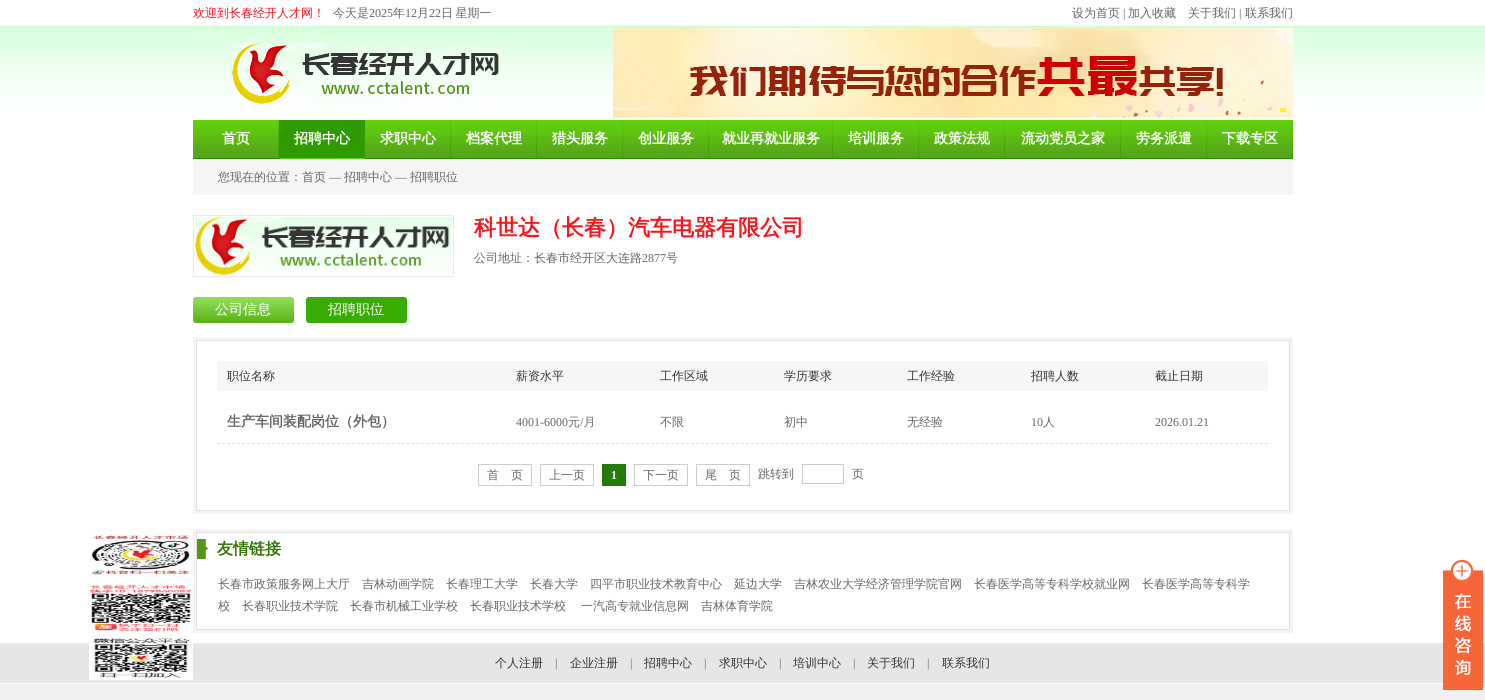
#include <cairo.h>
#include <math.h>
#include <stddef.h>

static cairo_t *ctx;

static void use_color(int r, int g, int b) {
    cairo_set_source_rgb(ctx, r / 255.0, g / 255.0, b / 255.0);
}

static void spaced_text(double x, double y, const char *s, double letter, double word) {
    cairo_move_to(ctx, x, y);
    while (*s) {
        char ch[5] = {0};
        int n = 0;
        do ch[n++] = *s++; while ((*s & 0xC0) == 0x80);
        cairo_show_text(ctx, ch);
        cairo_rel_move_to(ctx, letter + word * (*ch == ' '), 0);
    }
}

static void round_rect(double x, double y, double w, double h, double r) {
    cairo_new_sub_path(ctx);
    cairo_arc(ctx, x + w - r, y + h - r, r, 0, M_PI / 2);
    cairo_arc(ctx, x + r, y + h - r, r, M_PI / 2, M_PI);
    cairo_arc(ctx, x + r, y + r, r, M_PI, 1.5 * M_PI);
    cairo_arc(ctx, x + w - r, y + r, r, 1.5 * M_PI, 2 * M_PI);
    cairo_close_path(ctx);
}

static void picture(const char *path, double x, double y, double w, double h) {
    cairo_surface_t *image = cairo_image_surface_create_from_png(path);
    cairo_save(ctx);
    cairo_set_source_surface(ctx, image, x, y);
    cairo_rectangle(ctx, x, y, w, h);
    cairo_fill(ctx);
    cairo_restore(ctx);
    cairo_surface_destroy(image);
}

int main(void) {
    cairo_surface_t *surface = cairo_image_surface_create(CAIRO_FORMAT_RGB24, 1485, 700);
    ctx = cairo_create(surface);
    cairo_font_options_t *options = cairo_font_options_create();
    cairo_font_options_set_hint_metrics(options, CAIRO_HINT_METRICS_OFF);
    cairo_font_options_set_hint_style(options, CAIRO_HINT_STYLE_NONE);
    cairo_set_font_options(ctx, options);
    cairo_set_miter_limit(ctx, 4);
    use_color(255, 255, 255);
    cairo_paint(ctx);
    cairo_select_font_face(ctx, "WenQuanYi Zen Hei Medium", CAIRO_FONT_SLANT_NORMAL, CAIRO_FONT_WEIGHT_NORMAL);
    cairo_set_font_size(ctx, 12);
    use_color(253, 19, 26);
    cairo_move_to(ctx, 193, 17);
    cairo_show_text(ctx, "欢迎到长春经开人才网！");
    use_color(102, 102, 102);
    cairo_move_to(ctx, 333, 17);
    cairo_show_text(ctx, "今天是");
    cairo_select_font_face(ctx, "Liberation Serif", CAIRO_FONT_SLANT_NORMAL, CAIRO_FONT_WEIGHT_NORMAL);
    cairo_move_to(ctx, 369, 17);
    cairo_show_text(ctx, "2025");
    cairo_select_font_face(ctx, "WenQuanYi Zen Hei Medium", CAIRO_FONT_SLANT_NORMAL, CAIRO_FONT_WEIGHT_NORMAL);
    cairo_move_to(ctx, 393, 17);
    cairo_show_text(ctx, "年");
    cairo_select_font_face(ctx, "Liberation Serif", CAIRO_FONT_SLANT_NORMAL, CAIRO_FONT_WEIGHT_NORMAL);
    cairo_move_to(ctx, 405, 17);
    cairo_show_text(ctx, "12");
    cairo_select_font_face(ctx, "WenQuanYi Zen Hei Medium", CAIRO_FONT_SLANT_NORMAL, CAIRO_FONT_WEIGHT_NORMAL);
    cairo_move_to(ctx, 417, 17);
    cairo_show_text(ctx, "月");
    cairo_select_font_face(ctx, "Liberation Serif", CAIRO_FONT_SLANT_NORMAL, CAIRO_FONT_WEIGHT_NORMAL);
    cairo_move_to(ctx, 429, 17);
    cairo_show_text(ctx, "22");
    cairo_select_font_face(ctx, "WenQuanYi Zen Hei Medium", CAIRO_FONT_SLANT_NORMAL, CAIRO_FONT_WEIGHT_NORMAL);
    spaced_text(441, 17, "日 星期一", 0, -1);
    cairo_move_to(ctx, 1072, 17);
    cairo_show_text(ctx, "设为首页");
    cairo_select_font_face(ctx, "Liberation Serif", CAIRO_FONT_SLANT_NORMAL, CAIRO_FONT_WEIGHT_NORMAL);
    cairo_move_to(ctx, 1123, 17);
    cairo_show_text(ctx, "|");
    cairo_select_font_face(ctx, "WenQuanYi Zen Hei Medium", CAIRO_FONT_SLANT_NORMAL, CAIRO_FONT_WEIGHT_NORMAL);
    cairo_move_to(ctx, 1128, 17);
    cairo_show_text(ctx, "加入收藏");
    cairo_move_to(ctx, 1188, 17);
    cairo_show_text(ctx, "关于我们");
    cairo_select_font_face(ctx, "Liberation Serif", CAIRO_FONT_SLANT_NORMAL, CAIRO_FONT_WEIGHT_NORMAL);
    cairo_move_to(ctx, 1239, 17);
    cairo_show_text(ctx, "|");
    cairo_select_font_face(ctx, "WenQuanYi Zen Hei Medium", CAIRO_FONT_SLANT_NORMAL, CAIRO_FONT_WEIGHT_NORMAL);
    cairo_move_to(ctx, 1245, 17);
    cairo_show_text(ctx, "联系我们");
    picture("img1.png", 0, 26, 1485, 80);
    picture("img2.png", 232, 43, 270, 61);
    picture("img3.png", 613, 28, 680, 90);
    use_color(255, 243, 32);
    cairo_rectangle(ctx, 1280, 108, 6, 4);
    cairo_fill(ctx);
    picture("img4.png", 193, 120, 1099, 38);
    picture("img5.png", 278, 120, 1, 38);
    use_color(46, 145, 3);
    cairo_rectangle(ctx, 193, 158, 86, 1);
    cairo_fill(ctx);
    cairo_select_font_face(ctx, "WenQuanYi Zen Hei", CAIRO_FONT_SLANT_NORMAL, CAIRO_FONT_WEIGHT_BOLD);
    cairo_set_font_size(ctx, 14);
    use_color(255, 255, 255);
    cairo_move_to(ctx, 222, 143);
    cairo_show_text(ctx, "首页");
    use_color(47, 155, 0);
    cairo_rectangle(ctx, 279, 120, 86, 38);
    cairo_fill(ctx);
    use_color(90, 207, 2);
    cairo_rectangle(ctx, 279, 158, 86, 1);
    cairo_fill(ctx);
    use_color(255, 255, 255);
    cairo_move_to(ctx, 294, 143);
    cairo_show_text(ctx, "招聘中心");
    picture("img5.png", 450, 120, 1, 38);
    use_color(46, 145, 3);
    cairo_rectangle(ctx, 365, 158, 928, 1);
    cairo_fill(ctx);
    use_color(255, 255, 255);
    cairo_move_to(ctx, 380, 143);
    cairo_show_text(ctx, "求职中心");
    picture("img5.png", 536, 120, 1, 38);
    cairo_move_to(ctx, 466, 143);
    cairo_show_text(ctx, "档案代理");
    picture("img5.png", 622, 120, 1, 38);
    cairo_move_to(ctx, 552, 143);
    cairo_show_text(ctx, "猎头服务");
    picture("img5.png", 708, 120, 1, 38);
    cairo_move_to(ctx, 638, 143);
    cairo_show_text(ctx, "创业服务");
    picture("img5.png", 832, 120, 1, 38);
    cairo_move_to(ctx, 722, 143);
    cairo_show_text(ctx, "就业再就业服务");
    picture("img5.png", 918, 120, 1, 38);
    cairo_move_to(ctx, 848, 143);
    cairo_show_text(ctx, "培训服务");
    picture("img5.png", 1004, 120, 1, 38);
    cairo_move_to(ctx, 934, 143);
    cairo_show_text(ctx, "政策法规");
    picture("img5.png", 1120, 120, 1, 38);
    cairo_move_to(ctx, 1021, 143);
    cairo_show_text(ctx, "流动党员之家");
    picture("img5.png", 1206, 120, 1, 38);
    cairo_move_to(ctx, 1136, 143);
    cairo_show_text(ctx, "劳务派遣");
    picture("img5.png", 1292, 120, 1, 38);
    cairo_move_to(ctx, 1222, 143);
    cairo_show_text(ctx, "下载专区");
    use_color(245, 245, 245);
    cairo_rectangle(ctx, 193, 159, 1100, 36);
    cairo_fill(ctx);
    cairo_select_font_face(ctx, "WenQuanYi Zen Hei Medium", CAIRO_FONT_SLANT_NORMAL, CAIRO_FONT_WEIGHT_NORMAL);
    cairo_set_font_size(ctx, 12);
    use_color(102, 102, 102);
    cairo_move_to(ctx, 218, 181);
    cairo_show_text(ctx, "您现在的位置：首页");
    cairo_select_font_face(ctx, "Liberation Serif", CAIRO_FONT_SLANT_NORMAL, CAIRO_FONT_WEIGHT_NORMAL);
    cairo_move_to(ctx, 329, 181);
    cairo_show_text(ctx, "—");
    cairo_select_font_face(ctx, "WenQuanYi Zen Hei Medium", CAIRO_FONT_SLANT_NORMAL, CAIRO_FONT_WEIGHT_NORMAL);
    cairo_move_to(ctx, 344, 181);
    cairo_show_text(ctx, "招聘中心");
    cairo_select_font_face(ctx, "Liberation Serif", CAIRO_FONT_SLANT_NORMAL, CAIRO_FONT_WEIGHT_NORMAL);
    cairo_move_to(ctx, 395, 181);
    cairo_show_text(ctx, "—");
    cairo_select_font_face(ctx, "WenQuanYi Zen Hei Medium", CAIRO_FONT_SLANT_NORMAL, CAIRO_FONT_WEIGHT_NORMAL);
    cairo_move_to(ctx, 410, 181);
    cairo_show_text(ctx, "招聘职位");
    cairo_rectangle(ctx, 193.5, 215.5, 260, 61);
    use_color(235, 235, 235);
    cairo_set_line_width(ctx, 1);
    cairo_stroke(ctx);
    picture("img6.png", 195, 217, 257, 58);
    cairo_select_font_face(ctx, "WenQuanYi Zen Hei", CAIRO_FONT_SLANT_NORMAL, CAIRO_FONT_WEIGHT_BOLD);
    cairo_set_font_size(ctx, 22);
    use_color(253, 19, 26);
    cairo_move_to(ctx, 474, 235);
    cairo_show_text(ctx, "科世达（长春）汽车电器有限公司");
    cairo_select_font_face(ctx, "WenQuanYi Zen Hei Medium", CAIRO_FONT_SLANT_NORMAL, CAIRO_FONT_WEIGHT_NORMAL);
    cairo_set_font_size(ctx, 12);
    use_color(102, 102, 102);
    cairo_move_to(ctx, 474, 262);
    cairo_show_text(ctx, "公司地址：长春市经开区大连路");
    cairo_select_font_face(ctx, "Liberation Serif", CAIRO_FONT_SLANT_NORMAL, CAIRO_FONT_WEIGHT_NORMAL);
    cairo_move_to(ctx, 642, 262);
    cairo_show_text(ctx, "2877");
    cairo_select_font_face(ctx, "WenQuanYi Zen Hei Medium", CAIRO_FONT_SLANT_NORMAL, CAIRO_FONT_WEIGHT_NORMAL);
    cairo_move_to(ctx, 666, 262);
    cairo_show_text(ctx, "号");
    picture("img7.png", 193, 297, 101, 26);
    cairo_set_font_size(ctx, 14);
    use_color(255, 255, 255);
    cairo_move_to(ctx, 215, 314);
    cairo_show_text(ctx, "公司信息");
    use_color(55, 172, 3);
    round_rect(306, 297, 101, 26, 3);
    cairo_fill(ctx);
    use_color(255, 255, 255);
    cairo_move_to(ctx, 328, 314);
    cairo_show_text(ctx, "招聘职位");
    use_color(244, 244, 244);
    cairo_rectangle(ctx, 193, 337, 1100, 177);
    cairo_fill(ctx);
    use_color(255, 255, 255);
    cairo_rectangle(ctx, 196.5, 340.5, 1093, 170);
    cairo_fill_preserve(ctx);
    use_color(224, 224, 224);
    cairo_stroke(ctx);
    use_color(246, 246, 245);
    cairo_rectangle(ctx, 217, 361, 1051, 30);
    cairo_fill(ctx);
    cairo_set_font_size(ctx, 12);
    use_color(51, 51, 51);
    cairo_move_to(ctx, 227, 380);
    cairo_show_text(ctx, "职位名称");
    cairo_move_to(ctx, 516, 380);
    cairo_show_text(ctx, "薪资水平");
    cairo_move_to(ctx, 660, 380);
    cairo_show_text(ctx, "工作区域");
    cairo_move_to(ctx, 784, 380);
    cairo_show_text(ctx, "学历要求");
    cairo_move_to(ctx, 907, 380);
    cairo_show_text(ctx, "工作经验");
    cairo_move_to(ctx, 1031, 380);
    cairo_show_text(ctx, "招聘人数");
    cairo_move_to(ctx, 1155, 380);
    cairo_show_text(ctx, "截止日期");
    cairo_new_path(ctx);
    cairo_move_to(ctx, 217, 443.5);
    cairo_line_to(ctx, 1268, 443.5);
    use_color(224, 224, 224);
    cairo_set_dash(ctx, (double[]){3, 1.99}, 2, 0);
    cairo_stroke(ctx);
    cairo_select_font_face(ctx, "WenQuanYi Zen Hei", CAIRO_FONT_SLANT_NORMAL, CAIRO_FONT_WEIGHT_BOLD);
    cairo_set_font_size(ctx, 14);
    use_color(102, 102, 102);
    cairo_move_to(ctx, 227, 426);
    cairo_show_text(ctx, "生产车间装配岗位（外包）");
    cairo_select_font_face(ctx, "Liberation Serif", CAIRO_FONT_SLANT_NORMAL, CAIRO_FONT_WEIGHT_NORMAL);
    cairo_set_font_size(ctx, 12);
    cairo_move_to(ctx, 516, 426);
    cairo_show_text(ctx, "4001-6000");
    cairo_select_font_face(ctx, "WenQuanYi Zen Hei Medium", CAIRO_FONT_SLANT_NORMAL, CAIRO_FONT_WEIGHT_NORMAL);
    cairo_move_to(ctx, 568, 426);
    cairo_show_text(ctx, "元 月");
    cairo_select_font_face(ctx, "Liberation Serif", CAIRO_FONT_SLANT_NORMAL, CAIRO_FONT_WEIGHT_NORMAL);
    cairo_move_to(ctx, 580, 426);
    cairo_show_text(ctx, "/");
    cairo_select_font_face(ctx, "WenQuanYi Zen Hei Medium", CAIRO_FONT_SLANT_NORMAL, CAIRO_FONT_WEIGHT_NORMAL);
    cairo_move_to(ctx, 660, 426);
    cairo_show_text(ctx, "不限");
    cairo_move_to(ctx, 784, 426);
    cairo_show_text(ctx, "初中");
    cairo_move_to(ctx, 907, 426);
    cairo_show_text(ctx, "无经验");
    cairo_select_font_face(ctx, "Liberation Serif", CAIRO_FONT_SLANT_NORMAL, CAIRO_FONT_WEIGHT_NORMAL);
    cairo_move_to(ctx, 1031, 426);
    cairo_show_text(ctx, "10");
    cairo_select_font_face(ctx, "WenQuanYi Zen Hei Medium", CAIRO_FONT_SLANT_NORMAL, CAIRO_FONT_WEIGHT_NORMAL);
    cairo_move_to(ctx, 1043, 426);
    cairo_show_text(ctx, "人");
    cairo_select_font_face(ctx, "Liberation Serif", CAIRO_FONT_SLANT_NORMAL, CAIRO_FONT_WEIGHT_NORMAL);
    cairo_move_to(ctx, 1155, 426);
    cairo_show_text(ctx, "2026.01.21");
    cairo_rectangle(ctx, 478.5, 464.5, 53, 21);
    use_color(204, 204, 204);
    cairo_set_dash(ctx, NULL, 0, 0);
    cairo_stroke(ctx);
    cairo_select_font_face(ctx, "WenQuanYi Zen Hei Medium", CAIRO_FONT_SLANT_NORMAL, CAIRO_FONT_WEIGHT_NORMAL);
    use_color(102, 102, 102);
    cairo_move_to(ctx, 487, 479);
    cairo_show_text(ctx, "首　页");
    cairo_rectangle(ctx, 540.5, 464.5, 53, 21);
    use_color(204, 204, 204);
    cairo_stroke(ctx);
    use_color(102, 102, 102);
    cairo_move_to(ctx, 549, 479);
    cairo_show_text(ctx, "上一页");
    use_color(36, 123, 9);
    cairo_rectangle(ctx, 602, 464, 24, 22);
    cairo_fill(ctx);
    cairo_select_font_face(ctx, "Liberation Serif", CAIRO_FONT_SLANT_NORMAL, CAIRO_FONT_WEIGHT_BOLD);
    use_color(255, 255, 255);
    cairo_move_to(ctx, 611, 479);
    cairo_show_text(ctx, "1");
    cairo_rectangle(ctx, 634.5, 464.5, 53, 21);
    use_color(204, 204, 204);
    cairo_stroke(ctx);
    cairo_select_font_face(ctx, "WenQuanYi Zen Hei Medium", CAIRO_FONT_SLANT_NORMAL, CAIRO_FONT_WEIGHT_NORMAL);
    use_color(102, 102, 102);
    cairo_move_to(ctx, 643, 479);
    cairo_show_text(ctx, "下一页");
    cairo_rectangle(ctx, 696.5, 464.5, 53, 21);
    use_color(204, 204, 204);
    cairo_stroke(ctx);
    use_color(102, 102, 102);
    cairo_move_to(ctx, 705, 479);
    cairo_show_text(ctx, "尾　页");
    cairo_move_to(ctx, 758, 478);
    cairo_show_text(ctx, "跳转到");
    cairo_rectangle(ctx, 802.5, 464.5, 41, 19);
    use_color(204, 204, 204);
    cairo_stroke(ctx);
    use_color(102, 102, 102);
    cairo_move_to(ctx, 852, 478);
    cairo_show_text(ctx, "页");
    use_color(230, 230, 230);
    cairo_rectangle(ctx, 0, 643, 1485, 40);
    cairo_fill(ctx);
    picture("img8.png", 89, 535, 104, 145);
    use_color(244, 244, 244);
    cairo_rectangle(ctx, 193, 529, 1100, 104);
    cairo_fill(ctx);
    use_color(255, 255, 255);
    cairo_rectangle(ctx, 196.5, 532.5, 1093, 97);
    cairo_fill_preserve(ctx);
    use_color(224, 224, 224);
    cairo_stroke(ctx);
    picture("img9.png", 197, 539, 11, 20);
    cairo_select_font_face(ctx, "WenQuanYi Zen Hei", CAIRO_FONT_SLANT_NORMAL, CAIRO_FONT_WEIGHT_BOLD);
    cairo_set_font_size(ctx, 16);
    use_color(49, 114, 0);
    cairo_move_to(ctx, 217, 554);
    cairo_show_text(ctx, "友情链接");
    cairo_select_font_face(ctx, "WenQuanYi Zen Hei Medium", CAIRO_FONT_SLANT_NORMAL, CAIRO_FONT_WEIGHT_NORMAL);
    cairo_set_font_size(ctx, 12);
    use_color(102, 102, 102);
    cairo_move_to(ctx, 218, 588);
    cairo_show_text(ctx, "长春市政策服务网上大厅");
    cairo_move_to(ctx, 362, 588);
    cairo_show_text(ctx, "吉林动画学院");
    cairo_move_to(ctx, 446, 588);
    cairo_show_text(ctx, "长春理工大学");
    cairo_move_to(ctx, 530, 588);
    cairo_show_text(ctx, "长春大学");
    cairo_move_to(ctx, 590, 588);
    cairo_show_text(ctx, "四平市职业技术教育中心");
    cairo_move_to(ctx, 734, 588);
    cairo_show_text(ctx, "延边大学");
    cairo_move_to(ctx, 794, 588);
    cairo_show_text(ctx, "吉林农业大学经济管理学院官网");
    cairo_move_to(ctx, 974, 588);
    cairo_show_text(ctx, "长春医学高等专科学校就业网");
    cairo_move_to(ctx, 1142, 588);
    cairo_show_text(ctx, "长春医学高等专科学");
    cairo_save(ctx);
    cairo_rectangle(ctx, 218, 573, 1050, 56);
    cairo_clip(ctx);
    cairo_move_to(ctx, 218, 610);
    cairo_show_text(ctx, "校");
    cairo_restore(ctx);
    cairo_move_to(ctx, 242, 610);
    cairo_show_text(ctx, "长春职业技术学院");
    cairo_move_to(ctx, 350, 610);
    cairo_show_text(ctx, "长春市机械工业学校");
    cairo_move_to(ctx, 470, 610);
    cairo_show_text(ctx, "长春职业技术学校");
    cairo_move_to(ctx, 581, 610);
    cairo_show_text(ctx, "一汽高专就业信息网");
    cairo_move_to(ctx, 701, 610);
    cairo_show_text(ctx, "吉林体育学院");
    use_color(240, 240, 240);
    cairo_rectangle(ctx, 0, 684, 1485, 16);
    cairo_fill(ctx);
    picture("img10.png", 1443, 559, 40, 131);
    use_color(51, 51, 51);
    cairo_move_to(ctx, 495, 667);
    cairo_show_text(ctx, "个人注册");
    cairo_select_font_face(ctx, "Liberation Serif", CAIRO_FONT_SLANT_NORMAL, CAIRO_FONT_WEIGHT_NORMAL);
    use_color(102, 102, 102);
    cairo_move_to(ctx, 555, 667);
    cairo_show_text(ctx, "|");
    cairo_select_font_face(ctx, "WenQuanYi Zen Hei Medium", CAIRO_FONT_SLANT_NORMAL, CAIRO_FONT_WEIGHT_NORMAL);
    use_color(51, 51, 51);
    cairo_move_to(ctx, 570, 667);
    cairo_show_text(ctx, "企业注册");
    cairo_select_font_face(ctx, "Liberation Serif", CAIRO_FONT_SLANT_NORMAL, CAIRO_FONT_WEIGHT_NORMAL);
    use_color(102, 102, 102);
    cairo_move_to(ctx, 630, 667);
    cairo_show_text(ctx, "|");
    cairo_select_font_face(ctx, "WenQuanYi Zen Hei Medium", CAIRO_FONT_SLANT_NORMAL, CAIRO_FONT_WEIGHT_NORMAL);
    use_color(51, 51, 51);
    cairo_move_to(ctx, 644, 667);
    cairo_show_text(ctx, "招聘中心");
    cairo_select_font_face(ctx, "Liberation Serif", CAIRO_FONT_SLANT_NORMAL, CAIRO_FONT_WEIGHT_NORMAL);
    use_color(102, 102, 102);
    cairo_move_to(ctx, 704, 667);
    cairo_show_text(ctx, "|");
    cairo_select_font_face(ctx, "WenQuanYi Zen Hei Medium", CAIRO_FONT_SLANT_NORMAL, CAIRO_FONT_WEIGHT_NORMAL);
    use_color(51, 51, 51);
    cairo_move_to(ctx, 719, 667);
    cairo_show_text(ctx, "求职中心");
    cairo_select_font_face(ctx, "Liberation Serif", CAIRO_FONT_SLANT_NORMAL, CAIRO_FONT_WEIGHT_NORMAL);
    use_color(102, 102, 102);
    cairo_move_to(ctx, 779, 667);
    cairo_show_text(ctx, "|");
    cairo_select_font_face(ctx, "WenQuanYi Zen Hei Medium", CAIRO_FONT_SLANT_NORMAL, CAIRO_FONT_WEIGHT_NORMAL);
    use_color(51, 51, 51);
    cairo_move_to(ctx, 793, 667);
    cairo_show_text(ctx, "培训中心");
    cairo_select_font_face(ctx, "Liberation Serif", CAIRO_FONT_SLANT_NORMAL, CAIRO_FONT_WEIGHT_NORMAL);
    use_color(102, 102, 102);
    cairo_move_to(ctx, 853, 667);
    cairo_show_text(ctx, "|");
    cairo_select_font_face(ctx, "WenQuanYi Zen Hei Medium", CAIRO_FONT_SLANT_NORMAL, CAIRO_FONT_WEIGHT_NORMAL);
    use_color(51, 51, 51);
    cairo_move_to(ctx, 867, 667);
    cairo_show_text(ctx, "关于我们");
    cairo_select_font_face(ctx, "Liberation Serif", CAIRO_FONT_SLANT_NORMAL, CAIRO_FONT_WEIGHT_NORMAL);
    use_color(102, 102, 102);
    cairo_move_to(ctx, 927, 667);
    cairo_show_text(ctx, "|");
    cairo_select_font_face(ctx, "WenQuanYi Zen Hei Medium", CAIRO_FONT_SLANT_NORMAL, CAIRO_FONT_WEIGHT_NORMAL);
    use_color(51, 51, 51);
    cairo_move_to(ctx, 942, 667);
    cairo_show_text(ctx, "联系我们");
    cairo_surface_write_to_png(surface, "result.png");
    cairo_font_options_destroy(options);
    cairo_destroy(ctx);
    cairo_surface_destroy(surface);
    return 0;
}
